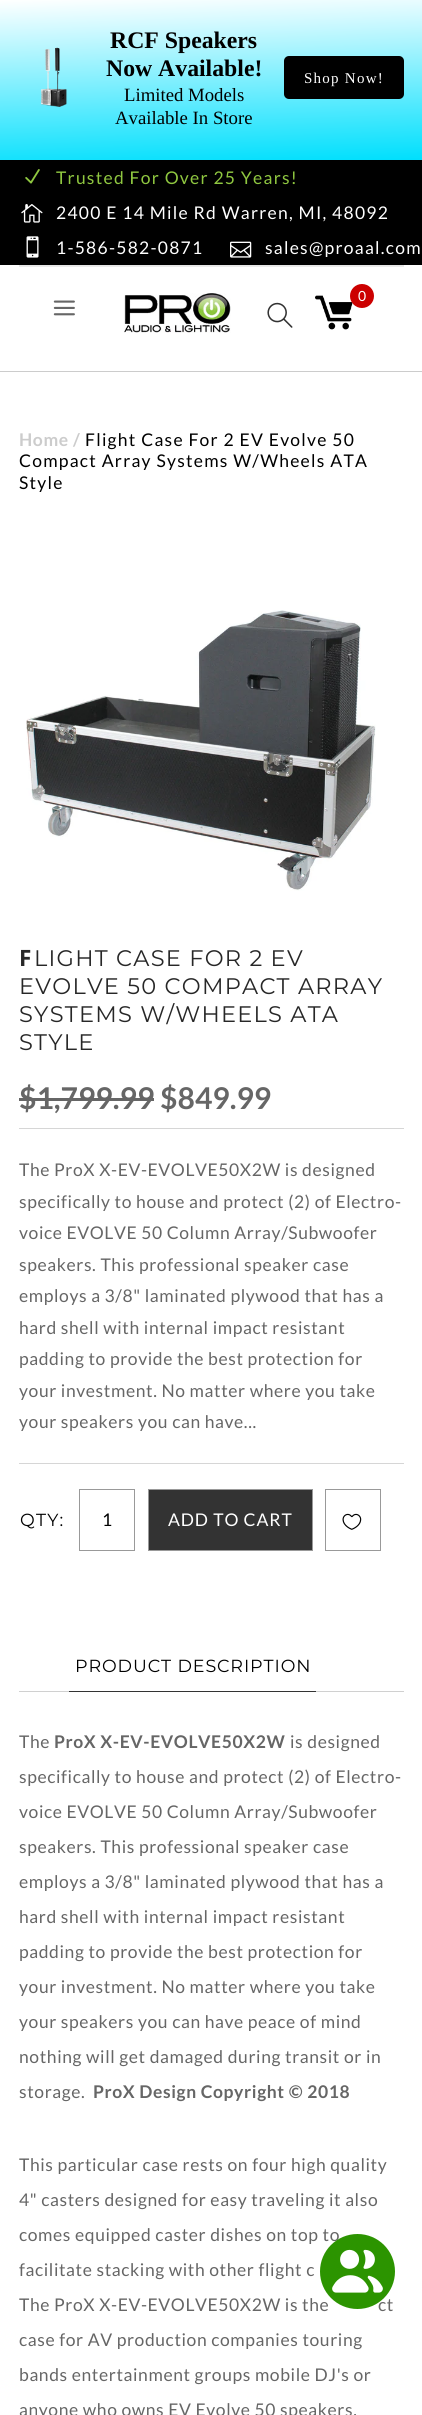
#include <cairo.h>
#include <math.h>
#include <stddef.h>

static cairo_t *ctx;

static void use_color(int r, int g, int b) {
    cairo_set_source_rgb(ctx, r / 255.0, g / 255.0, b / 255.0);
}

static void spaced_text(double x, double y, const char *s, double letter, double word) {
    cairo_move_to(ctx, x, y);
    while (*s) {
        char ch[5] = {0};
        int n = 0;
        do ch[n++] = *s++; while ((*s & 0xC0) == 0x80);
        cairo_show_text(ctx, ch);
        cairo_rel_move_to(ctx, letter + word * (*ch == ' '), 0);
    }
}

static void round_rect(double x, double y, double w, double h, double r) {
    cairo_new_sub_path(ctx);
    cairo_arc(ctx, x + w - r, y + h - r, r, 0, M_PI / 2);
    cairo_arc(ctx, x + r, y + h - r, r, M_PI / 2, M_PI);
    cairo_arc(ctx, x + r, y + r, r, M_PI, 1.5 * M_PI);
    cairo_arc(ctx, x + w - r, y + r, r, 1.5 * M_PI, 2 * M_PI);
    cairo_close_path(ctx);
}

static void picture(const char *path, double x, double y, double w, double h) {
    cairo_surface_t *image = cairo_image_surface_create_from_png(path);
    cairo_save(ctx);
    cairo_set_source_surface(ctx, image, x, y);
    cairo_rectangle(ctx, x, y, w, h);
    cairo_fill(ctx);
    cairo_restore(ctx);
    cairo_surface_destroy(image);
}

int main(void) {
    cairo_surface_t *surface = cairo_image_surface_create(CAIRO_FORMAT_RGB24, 422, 2415);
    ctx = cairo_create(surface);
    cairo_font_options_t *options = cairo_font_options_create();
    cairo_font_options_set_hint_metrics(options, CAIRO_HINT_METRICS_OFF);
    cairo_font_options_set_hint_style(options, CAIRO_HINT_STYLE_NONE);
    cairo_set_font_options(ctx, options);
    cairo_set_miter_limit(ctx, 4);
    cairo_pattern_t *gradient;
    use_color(255, 255, 255);
    cairo_paint(ctx);
    gradient = cairo_pattern_create_linear(208, -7.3, 214, 167);
    cairo_pattern_add_color_stop_rgba(gradient, 0, 1, 1, 1, 1);
    cairo_pattern_add_color_stop_rgba(gradient, 1, 0, 0.875, 0.992, 1);
    cairo_set_source(ctx, gradient);
    cairo_pattern_destroy(gradient);
    cairo_rectangle(ctx, 0, 0, 422, 160);
    cairo_fill(ctx);
    picture("img1.png", 40, 47, 27, 60);
    cairo_select_font_face(ctx, "Liberation Serif", CAIRO_FONT_SLANT_NORMAL, CAIRO_FONT_WEIGHT_BOLD);
    cairo_set_font_size(ctx, 23.75);
    use_color(0, 0, 0);
    cairo_move_to(ctx, 110, 48);
    cairo_show_text(ctx, "RCF Speakers");
    cairo_move_to(ctx, 106, 76);
    cairo_show_text(ctx, "Now Available!");
    cairo_select_font_face(ctx, "Liberation Serif", CAIRO_FONT_SLANT_NORMAL, CAIRO_FONT_WEIGHT_NORMAL);
    cairo_set_font_size(ctx, 18.75);
    cairo_move_to(ctx, 124, 101);
    cairo_show_text(ctx, "Limited Models");
    cairo_move_to(ctx, 115, 124);
    cairo_show_text(ctx, "Available In Store");
    round_rect(284, 56, 120, 43, 5);
    cairo_fill(ctx);
    cairo_set_font_size(ctx, 15);
    use_color(255, 255, 255);
    spaced_text(304, 83, "Shop Now!", 1.25, 0);
    use_color(204, 204, 204);
    cairo_rectangle(ctx, 0, 371, 422, 1);
    cairo_fill(ctx);
    use_color(0, 0, 0);
    cairo_rectangle(ctx, 0, 160, 422, 105);
    cairo_fill(ctx);
    picture("img2.png", 25, 169, 15, 15);
    cairo_select_font_face(ctx, "Lato", CAIRO_FONT_SLANT_NORMAL, CAIRO_FONT_WEIGHT_NORMAL);
    cairo_set_font_size(ctx, 17.5);
    use_color(143, 199, 64);
    spaced_text(56, 184, "Trusted For Over 25 Years!", 1.25, 0);
    picture("img3.png", 21, 204, 22, 19);
    use_color(255, 255, 255);
    spaced_text(56, 219, "2400 E 14 Mile Rd Warren, MI, 48092", 1.25, 0);
    picture("img4.png", 26, 236, 13, 22);
    spaced_text(56, 254, "1-586-582-0871", 1.25, 0);
    picture("img5.png", 230, 241, 22, 17);
    spaced_text(265, 254, "sales@proaal.com", 1.25, 0);
    use_color(230, 230, 230);
    cairo_rectangle(ctx, 19, 265, 385, 1);
    cairo_fill(ctx);
    use_color(234, 234, 234);
    cairo_rectangle(ctx, 19, 266, 385, 1);
    cairo_fill(ctx);
    picture("img6.png", 53, 300, 22, 16);
    picture("img7.png", 124, 293, 107, 40);
    picture("img8.png", 267, 302, 26, 26);
    picture("img9.png", 315, 295, 38, 35);
    use_color(204, 0, 0);
    cairo_arc(ctx, 362, 296, 12, 0, 2 * M_PI);
    cairo_fill(ctx);
    cairo_set_font_size(ctx, 14);
    use_color(255, 255, 255);
    spaced_text(358, 301, "0", 1.25, 0);
    cairo_select_font_face(ctx, "Lato", CAIRO_FONT_SLANT_NORMAL, CAIRO_FONT_WEIGHT_BOLD);
    cairo_set_font_size(ctx, 17.5);
    use_color(204, 204, 204);
    spaced_text(19, 446, "Home", 0.6, 0);
    spaced_text(73, 446, "/", 0.6, 0);
    cairo_select_font_face(ctx, "Lato", CAIRO_FONT_SLANT_NORMAL, CAIRO_FONT_WEIGHT_NORMAL);
    use_color(0, 0, 0);
    spaced_text(85, 446, "Flight Case For 2 EV Evolve 50", 1.25, 0);
    spaced_text(19, 467, "Compact Array Systems W/Wheels ATA", 1.25, 0);
    spaced_text(19, 489, "Style", 1.25, 0);
    picture("img10.png", 26, 610, 350, 281);
    cairo_select_font_face(ctx, "Noto Sans", CAIRO_FONT_SLANT_NORMAL, CAIRO_FONT_WEIGHT_BOLD);
    cairo_set_font_size(ctx, 22.5);
    use_color(39, 39, 39);
    spaced_text(19, 966, "F", 1.25, 0);
    cairo_select_font_face(ctx, "Montserrat", CAIRO_FONT_SLANT_NORMAL, CAIRO_FONT_WEIGHT_NORMAL);
    spaced_text(34, 966, "LIGHT CASE FOR 2 EV", 1.25, 0);
    spaced_text(19, 994, "EVOLVE 50 COMPACT ARRAY", 1.25, 0);
    spaced_text(19, 1022, "SYSTEMS W/WHEELS ATA", 1.25, 0);
    spaced_text(19, 1050, "STYLE", 1.25, 0);
    cairo_select_font_face(ctx, "Lato", CAIRO_FONT_SLANT_NORMAL, CAIRO_FONT_WEIGHT_BOLD);
    cairo_set_font_size(ctx, 30);
    use_color(102, 102, 102);
    cairo_move_to(ctx, 19, 1109);
    cairo_show_text(ctx, "$1,799.99 $849.99");
    cairo_rectangle(ctx, 19, 1098, 135, 3);
    cairo_fill(ctx);
    use_color(214, 214, 214);
    cairo_rectangle(ctx, 19, 1128, 385, 1);
    cairo_fill(ctx);
    cairo_rectangle(ctx, 19, 1463, 385, 1);
    cairo_fill(ctx);
    cairo_select_font_face(ctx, "Lato", CAIRO_FONT_SLANT_NORMAL, CAIRO_FONT_WEIGHT_NORMAL);
    cairo_set_font_size(ctx, 17.5);
    use_color(102, 102, 102);
    spaced_text(19, 1176, "The ProX X-EV-EVOLVE50X2W is designed", 0.6, 0);
    spaced_text(19, 1208, "specifically to house and protect (2) of Electro-", 0.6, 0);
    spaced_text(19, 1239, "voice EVOLVE 50 Column Array/Subwoofer", 0.6, 0);
    spaced_text(19, 1271, "speakers. This professional speaker case", 0.6, 0);
    spaced_text(19, 1302, "employs a 3/8\" laminated plywood that has a", 0.6, 0);
    spaced_text(19, 1334, "hard shell with internal impact resistant", 0.6, 0);
    spaced_text(19, 1365, "padding to provide the best protection for", 0.6, 0);
    spaced_text(19, 1397, "your investment. No matter where you take", 0.6, 0);
    spaced_text(19, 1428, "your speakers you can have...", 0.6, 0);
    cairo_select_font_face(ctx, "Montserrat", CAIRO_FONT_SLANT_NORMAL, CAIRO_FONT_WEIGHT_NORMAL);
    use_color(0, 0, 0);
    spaced_text(20, 1526, "QTY:", 1.25, 0);
    cairo_rectangle(ctx, 79.5, 1489.5, 55, 61);
    use_color(153, 153, 153);
    cairo_set_line_width(ctx, 1);
    cairo_stroke(ctx);
    cairo_select_font_face(ctx, "Lato", CAIRO_FONT_SLANT_NORMAL, CAIRO_FONT_WEIGHT_NORMAL);
    use_color(0, 0, 0);
    cairo_move_to(ctx, 102, 1526);
    cairo_show_text(ctx, "1");
    use_color(51, 51, 51);
    cairo_rectangle(ctx, 148.5, 1489.5, 164, 61);
    cairo_fill_preserve(ctx);
    use_color(153, 153, 153);
    cairo_stroke(ctx);
    use_color(255, 255, 255);
    spaced_text(168, 1526, "ADD TO CART", 0.9, 0);
    cairo_rectangle(ctx, 325.5, 1489.5, 55, 61);
    use_color(153, 153, 153);
    cairo_stroke(ctx);
    picture("img11.png", 342, 1513, 20, 17);
    use_color(208, 208, 208);
    cairo_rectangle(ctx, 19, 1691, 385, 1);
    cairo_fill(ctx);
    cairo_select_font_face(ctx, "Montserrat", CAIRO_FONT_SLANT_NORMAL, CAIRO_FONT_WEIGHT_NORMAL);
    use_color(0, 0, 0);
    spaced_text(75, 1672, "PRODUCT DESCRIPTION", 0.9, 0);
    use_color(51, 51, 51);
    cairo_rectangle(ctx, 69, 1691, 247, 1);
    cairo_fill(ctx);
    cairo_select_font_face(ctx, "Lato", CAIRO_FONT_SLANT_NORMAL, CAIRO_FONT_WEIGHT_NORMAL);
    use_color(102, 102, 102);
    spaced_text(19, 1748, "The", 0.6, 0);
    cairo_select_font_face(ctx, "Lato", CAIRO_FONT_SLANT_NORMAL, CAIRO_FONT_WEIGHT_BOLD);
    spaced_text(54, 1748, "ProX X-EV-EVOLVE50X2W", 0.6, 0);
    cairo_select_font_face(ctx, "Lato", CAIRO_FONT_SLANT_NORMAL, CAIRO_FONT_WEIGHT_NORMAL);
    spaced_text(290, 1748, "is designed", 0.6, 0);
    spaced_text(19, 1783, "specifically to house and protect (2) of Electro-", 0.6, 0);
    spaced_text(19, 1818, "voice EVOLVE 50 Column Array/Subwoofer", 0.6, 0);
    spaced_text(19, 1853, "speakers. This professional speaker case", 0.6, 0);
    spaced_text(19, 1888, "employs a 3/8\" laminated plywood that has a", 0.6, 0);
    spaced_text(19, 1923, "hard shell with internal impact resistant", 0.6, 0);
    spaced_text(19, 1958, "padding to provide the best protection for", 0.6, 0);
    spaced_text(19, 1993, "your investment. No matter where you take", 0.6, 0);
    spaced_text(19, 2028, "your speakers you can have peace of mind", 0.6, 0);
    spaced_text(19, 2063, "nothing will get damaged during transit or in", 0.6, 0);
    spaced_text(19, 2098, "storage.", 0.6, 0);
    cairo_select_font_face(ctx, "Lato", CAIRO_FONT_SLANT_NORMAL, CAIRO_FONT_WEIGHT_BOLD);
    spaced_text(93, 2098, "ProX Design Copyright © 2018", 0.6, 0);
    cairo_select_font_face(ctx, "Lato", CAIRO_FONT_SLANT_NORMAL, CAIRO_FONT_WEIGHT_NORMAL);
    spaced_text(19, 2171, "This particular case rests on four high quality", 0.6, 0);
    spaced_text(19, 2206, "4\" casters designed for easy traveling it also", 0.6, 0);
    spaced_text(19, 2241, "comes equipped caster dishes on top to", 0.6, 0);
    spaced_text(19, 2276, "facilitate stacking with other flight c", 0.6, 0);
    spaced_text(19, 2311, "The ProX X-EV-EVOLVE50X2W is the", 0.6, 0);
    spaced_text(378, 2311, "ct", 0.6, 0);
    spaced_text(19, 2346, "case for AV production companies touring", 0.6, 0);
    spaced_text(19, 2381, "bands entertainment groups mobile DJ's or", 0.6, 0);
    spaced_text(19, 2416, "anyone who owns EV Evolve 50 speakers.", 0.6, 0);
    use_color(44, 148, 0);
    cairo_new_path(ctx);
    cairo_arc(ctx, 357.5, 2271.5, 37.5, 0, 2 * M_PI);
    cairo_fill(ctx);
    picture("img12.png", 332, 2249, 51, 44);
    cairo_surface_write_to_png(surface, "result.png");
    cairo_font_options_destroy(options);
    cairo_destroy(ctx);
    cairo_surface_destroy(surface);
    return 0;
}
